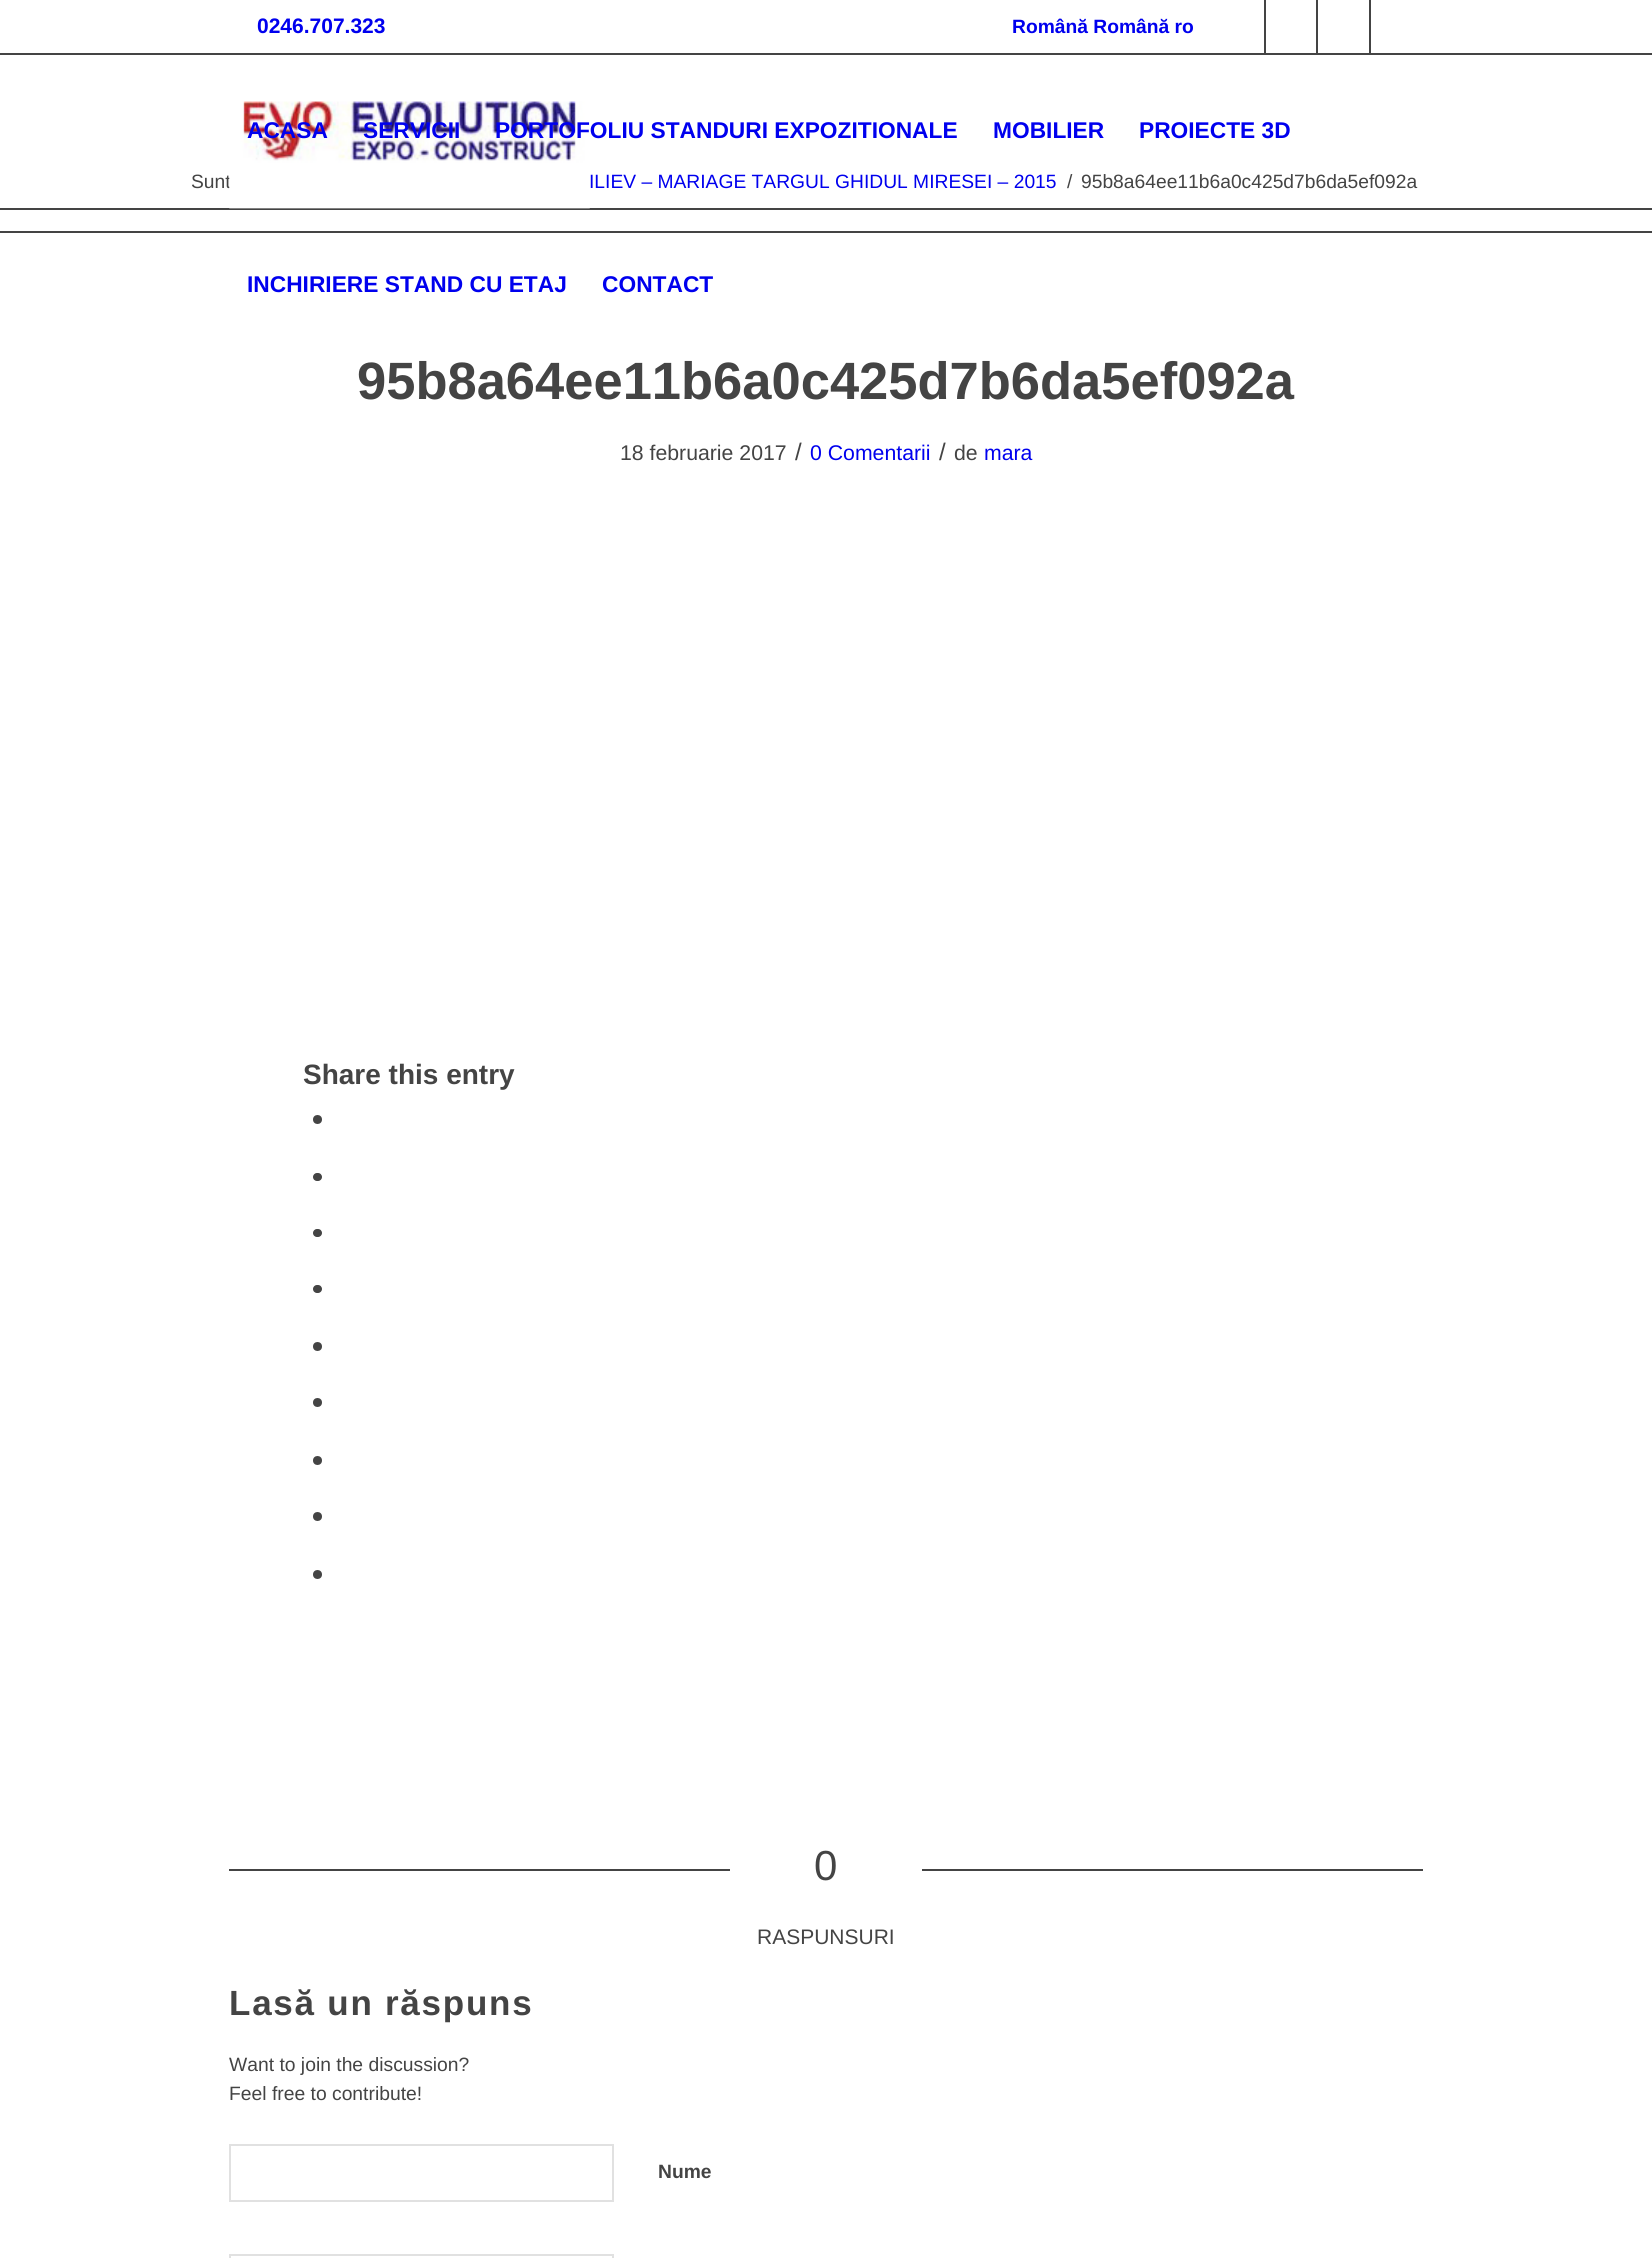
#include <cairo.h>
#include <math.h>
#include <stddef.h>

static cairo_t *ctx;

static void use_color(int r, int g, int b) {
    cairo_set_source_rgb(ctx, r / 255.0, g / 255.0, b / 255.0);
}

static void spaced_text(double x, double y, const char *s, double letter, double word) {
    cairo_move_to(ctx, x, y);
    while (*s) {
        char ch[5] = {0};
        int n = 0;
        do ch[n++] = *s++; while ((*s & 0xC0) == 0x80);
        cairo_show_text(ctx, ch);
        cairo_rel_move_to(ctx, letter + word * (*ch == ' '), 0);
    }
}

static void round_rect(double x, double y, double w, double h, double r) {
    cairo_new_sub_path(ctx);
    cairo_arc(ctx, x + w - r, y + h - r, r, 0, M_PI / 2);
    cairo_arc(ctx, x + r, y + h - r, r, M_PI / 2, M_PI);
    cairo_arc(ctx, x + r, y + r, r, M_PI, 1.5 * M_PI);
    cairo_arc(ctx, x + w - r, y + r, r, 1.5 * M_PI, 2 * M_PI);
    cairo_close_path(ctx);
}

static void picture(const char *path, double x, double y, double w, double h) {
    cairo_surface_t *image = cairo_image_surface_create_from_png(path);
    cairo_save(ctx);
    cairo_set_source_surface(ctx, image, x, y);
    cairo_rectangle(ctx, x, y, w, h);
    cairo_fill(ctx);
    cairo_restore(ctx);
    cairo_surface_destroy(image);
}

int main(void) {
    cairo_surface_t *surface = cairo_image_surface_create(CAIRO_FORMAT_RGB24, 1652, 2258);
    ctx = cairo_create(surface);
    cairo_font_options_t *options = cairo_font_options_create();
    cairo_font_options_set_hint_metrics(options, CAIRO_HINT_METRICS_OFF);
    cairo_font_options_set_hint_style(options, CAIRO_HINT_STYLE_NONE);
    cairo_set_font_options(ctx, options);
    cairo_set_miter_limit(ctx, 4);
    use_color(255, 255, 255);
    cairo_paint(ctx);
    use_color(68, 68, 68);
    cairo_rectangle(ctx, 0, 53, 1652, 2);
    cairo_fill(ctx);
    cairo_select_font_face(ctx, "Liberation Sans", CAIRO_FONT_SLANT_NORMAL, CAIRO_FONT_WEIGHT_BOLD);
    cairo_set_font_size(ctx, 21);
    use_color(0, 0, 238);
    cairo_move_to(ctx, 257, 33);
    cairo_show_text(ctx, "0246.707.323");
    cairo_set_font_size(ctx, 19.25);
    cairo_move_to(ctx, 1012, 33);
    cairo_show_text(ctx, "Română Română ro");
    use_color(68, 68, 68);
    cairo_rectangle(ctx, 1264, 0, 2, 53);
    cairo_fill(ctx);
    cairo_rectangle(ctx, 1316, 0, 2, 53);
    cairo_fill(ctx);
    cairo_rectangle(ctx, 1369, 0, 2, 53);
    cairo_fill(ctx);
    cairo_rectangle(ctx, 0, 208, 1652, 2);
    cairo_fill(ctx);
    cairo_select_font_face(ctx, "Liberation Sans", CAIRO_FONT_SLANT_NORMAL, CAIRO_FONT_WEIGHT_NORMAL);
    cairo_move_to(ctx, 191, 188);
    cairo_show_text(ctx, "Sunt");
    picture("img1.png", 229, 55, 361, 154);
    cairo_select_font_face(ctx, "Liberation Sans", CAIRO_FONT_SLANT_NORMAL, CAIRO_FONT_WEIGHT_BOLD);
    cairo_set_font_size(ctx, 22.75);
    use_color(0, 0, 238);
    cairo_move_to(ctx, 247, 138);
    cairo_show_text(ctx, "ACASA");
    cairo_move_to(ctx, 363, 138);
    cairo_show_text(ctx, "SERVICII");
    cairo_move_to(ctx, 495, 138);
    cairo_show_text(ctx, "PORTOFOLIU STANDURI EXPOZITIONALE");
    cairo_move_to(ctx, 993, 138);
    cairo_show_text(ctx, "MOBILIER");
    cairo_move_to(ctx, 1139, 138);
    cairo_show_text(ctx, "PROIECTE 3D");
    cairo_move_to(ctx, 247, 292);
    cairo_show_text(ctx, "INCHIRIERE STAND CU ETAJ");
    cairo_move_to(ctx, 602, 292);
    cairo_show_text(ctx, "CONTACT");
    cairo_select_font_face(ctx, "Liberation Sans", CAIRO_FONT_SLANT_NORMAL, CAIRO_FONT_WEIGHT_NORMAL);
    cairo_set_font_size(ctx, 19.25);
    cairo_move_to(ctx, 589, 188);
    cairo_show_text(ctx, "ILIEV – MARIAGE TARGUL GHIDUL MIRESEI – 2015");
    use_color(68, 68, 68);
    cairo_move_to(ctx, 1067, 188);
    cairo_show_text(ctx, "/");
    cairo_move_to(ctx, 1081, 188);
    cairo_show_text(ctx, "95b8a64ee11b6a0c425d7b6da5ef092a");
    cairo_rectangle(ctx, 0, 231, 1652, 2);
    cairo_fill(ctx);
    cairo_select_font_face(ctx, "Liberation Sans", CAIRO_FONT_SLANT_NORMAL, CAIRO_FONT_WEIGHT_BOLD);
    cairo_set_font_size(ctx, 52.5);
    cairo_move_to(ctx, 357, 399);
    cairo_show_text(ctx, "95b8a64ee11b6a0c425d7b6da5ef092a");
    cairo_select_font_face(ctx, "Liberation Sans", CAIRO_FONT_SLANT_NORMAL, CAIRO_FONT_WEIGHT_NORMAL);
    cairo_set_font_size(ctx, 21.25);
    cairo_move_to(ctx, 620, 460);
    cairo_show_text(ctx, "18 februarie 2017");
    cairo_set_font_size(ctx, 24);
    cairo_move_to(ctx, 795, 460);
    cairo_show_text(ctx, "/");
    cairo_set_font_size(ctx, 21.25);
    use_color(0, 0, 238);
    cairo_move_to(ctx, 810, 460);
    cairo_show_text(ctx, "0 Comentarii");
    cairo_set_font_size(ctx, 24);
    use_color(68, 68, 68);
    cairo_move_to(ctx, 939, 460);
    cairo_show_text(ctx, "/");
    cairo_set_font_size(ctx, 21.25);
    cairo_move_to(ctx, 954, 460);
    cairo_show_text(ctx, "de");
    use_color(0, 0, 238);
    cairo_move_to(ctx, 984, 460);
    cairo_show_text(ctx, "mara");
    cairo_select_font_face(ctx, "Liberation Sans", CAIRO_FONT_SLANT_NORMAL, CAIRO_FONT_WEIGHT_BOLD);
    cairo_set_font_size(ctx, 28);
    use_color(68, 68, 68);
    cairo_move_to(ctx, 303, 1084);
    cairo_show_text(ctx, "Share this entry");
    cairo_new_path(ctx);
    cairo_arc(ctx, 317.5, 1119.5, 4.5, 0, 2 * M_PI);
    cairo_fill(ctx);
    round_rect(313, 1173, 9, 8, 4);
    cairo_fill(ctx);
    round_rect(313, 1229, 9, 8, 4);
    cairo_fill(ctx);
    round_rect(313, 1285, 9, 8, 4);
    cairo_fill(ctx);
    cairo_arc(ctx, 317.5, 1346.5, 4.5, 0, 2 * M_PI);
    cairo_fill(ctx);
    cairo_arc(ctx, 317.5, 1402.5, 4.5, 0, 2 * M_PI);
    cairo_fill(ctx);
    cairo_arc(ctx, 317.5, 1460.5, 4.5, 0, 2 * M_PI);
    cairo_fill(ctx);
    cairo_arc(ctx, 317.5, 1516.5, 4.5, 0, 2 * M_PI);
    cairo_fill(ctx);
    cairo_arc(ctx, 317.5, 1574.5, 4.5, 0, 2 * M_PI);
    cairo_fill(ctx);
    cairo_rectangle(ctx, 229, 1869, 501, 2);
    cairo_fill(ctx);
    cairo_select_font_face(ctx, "Liberation Sans", CAIRO_FONT_SLANT_NORMAL, CAIRO_FONT_WEIGHT_NORMAL);
    cairo_set_font_size(ctx, 42);
    cairo_move_to(ctx, 814, 1880);
    cairo_show_text(ctx, "0");
    cairo_rectangle(ctx, 922, 1869, 501, 2);
    cairo_fill(ctx);
    cairo_set_font_size(ctx, 21);
    cairo_move_to(ctx, 757, 1944);
    cairo_show_text(ctx, "RASPUNSURI");
    cairo_select_font_face(ctx, "Liberation Sans", CAIRO_FONT_SLANT_NORMAL, CAIRO_FONT_WEIGHT_BOLD);
    cairo_set_font_size(ctx, 35);
    spaced_text(229, 2015, "Lasă un răspuns", 1.75, 0);
    cairo_select_font_face(ctx, "Liberation Sans", CAIRO_FONT_SLANT_NORMAL, CAIRO_FONT_WEIGHT_NORMAL);
    cairo_set_font_size(ctx, 19.3);
    cairo_move_to(ctx, 229, 2071);
    cairo_show_text(ctx, "Want to join the discussion?");
    cairo_move_to(ctx, 229, 2100);
    cairo_show_text(ctx, "Feel free to contribute!");
    cairo_rectangle(ctx, 230, 2145, 383, 56);
    use_color(225, 225, 225);
    cairo_stroke(ctx);
    cairo_select_font_face(ctx, "Liberation Sans", CAIRO_FONT_SLANT_NORMAL, CAIRO_FONT_WEIGHT_BOLD);
    cairo_set_font_size(ctx, 19.25);
    use_color(68, 68, 68);
    cairo_move_to(ctx, 658, 2178);
    cairo_show_text(ctx, "Nume");
    cairo_rectangle(ctx, 230, 2255, 383, 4);
    use_color(225, 225, 225);
    cairo_stroke(ctx);
    cairo_surface_write_to_png(surface, "result.png");
    cairo_font_options_destroy(options);
    cairo_destroy(ctx);
    cairo_surface_destroy(surface);
    return 0;
}
